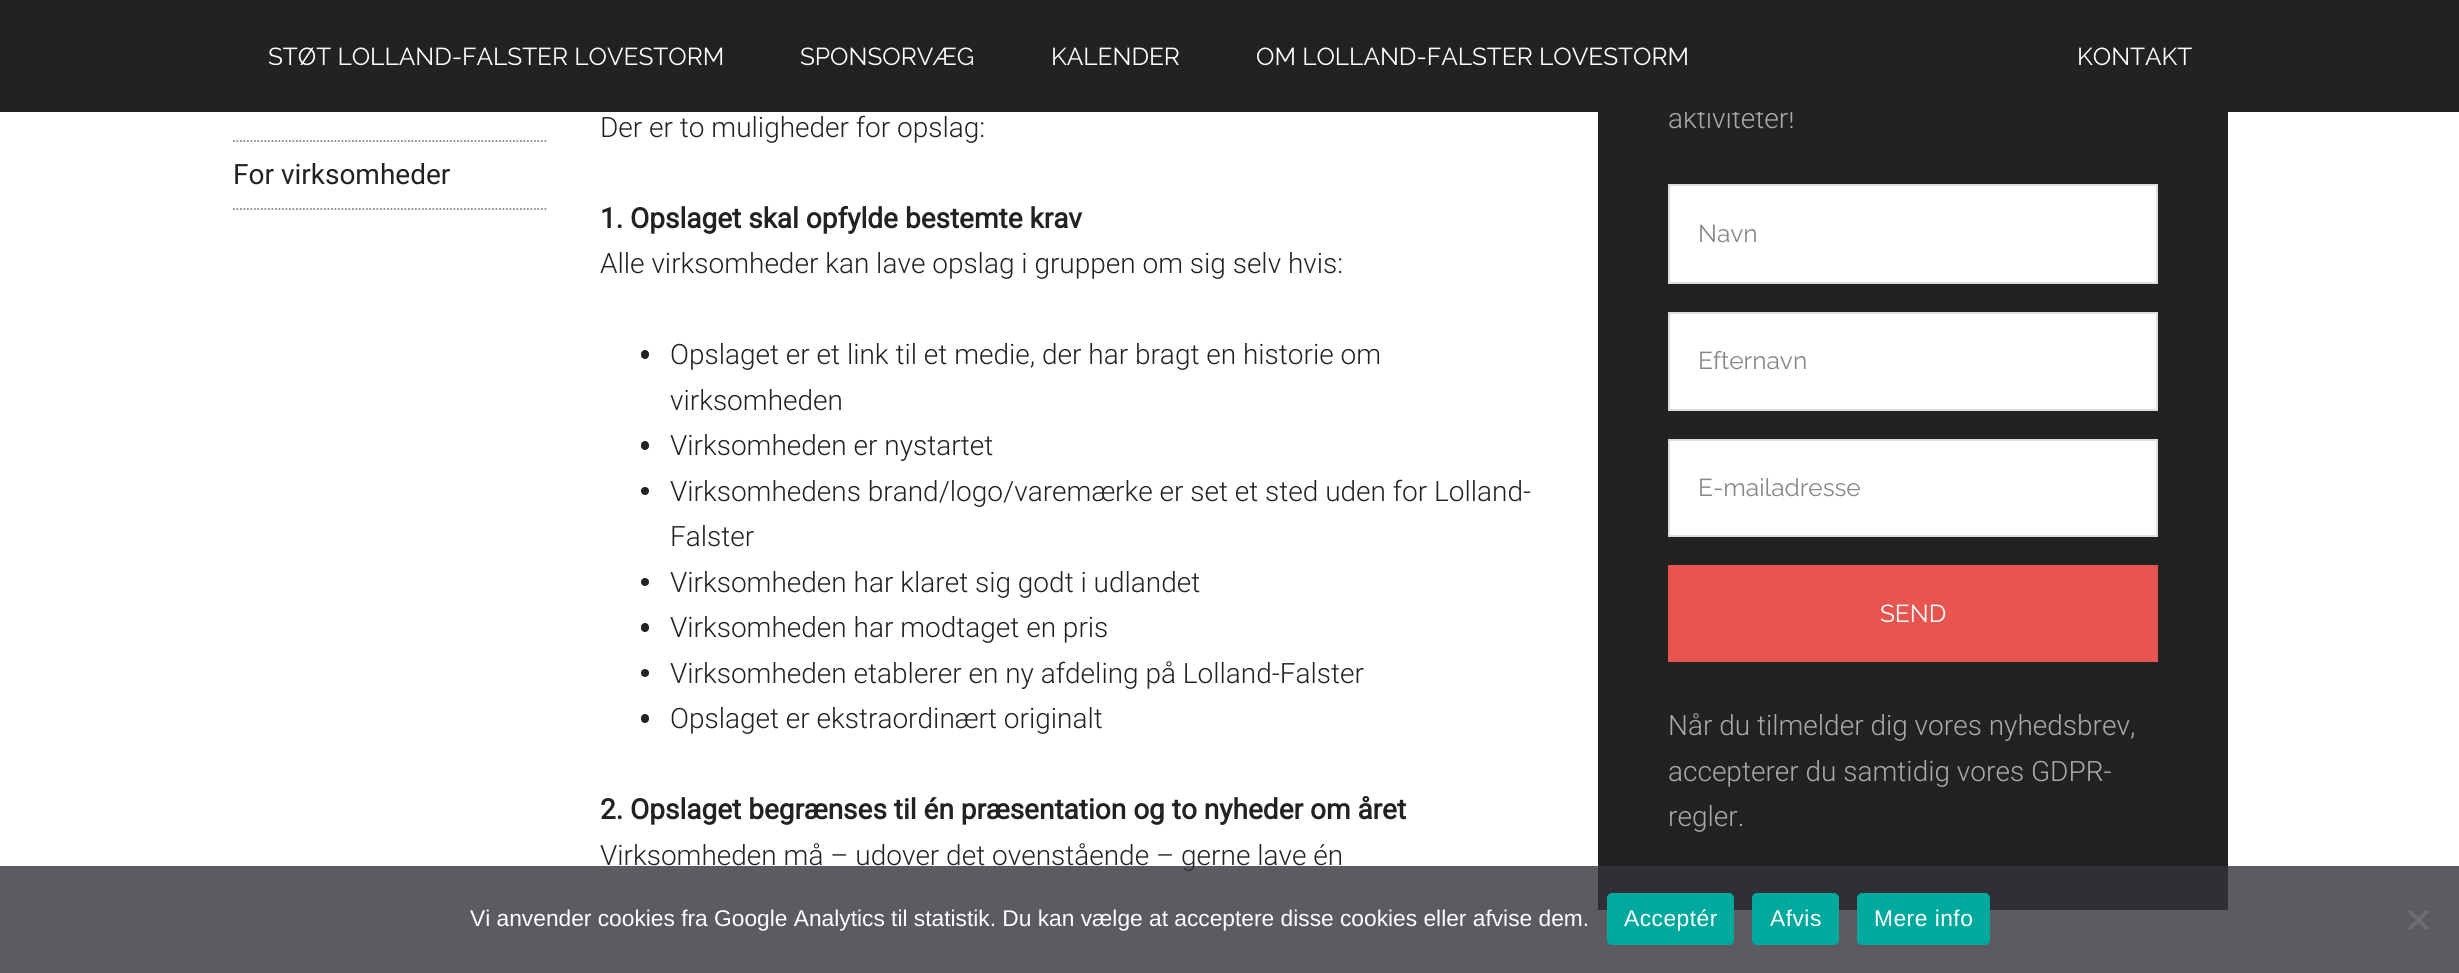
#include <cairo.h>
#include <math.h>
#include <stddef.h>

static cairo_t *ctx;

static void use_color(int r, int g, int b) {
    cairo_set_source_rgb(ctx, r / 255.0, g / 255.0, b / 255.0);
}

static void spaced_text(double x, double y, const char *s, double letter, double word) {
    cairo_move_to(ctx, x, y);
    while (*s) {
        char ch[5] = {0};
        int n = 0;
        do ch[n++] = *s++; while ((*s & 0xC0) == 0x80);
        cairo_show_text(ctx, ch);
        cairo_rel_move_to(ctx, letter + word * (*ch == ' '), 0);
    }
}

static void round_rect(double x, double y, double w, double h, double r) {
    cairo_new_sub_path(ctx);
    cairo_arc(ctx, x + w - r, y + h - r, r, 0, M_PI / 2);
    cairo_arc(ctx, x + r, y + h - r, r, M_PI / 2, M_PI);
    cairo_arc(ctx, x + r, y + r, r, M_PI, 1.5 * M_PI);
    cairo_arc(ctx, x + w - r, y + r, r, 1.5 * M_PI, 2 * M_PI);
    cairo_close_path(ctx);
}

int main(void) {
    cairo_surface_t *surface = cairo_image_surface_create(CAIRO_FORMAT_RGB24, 2459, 973);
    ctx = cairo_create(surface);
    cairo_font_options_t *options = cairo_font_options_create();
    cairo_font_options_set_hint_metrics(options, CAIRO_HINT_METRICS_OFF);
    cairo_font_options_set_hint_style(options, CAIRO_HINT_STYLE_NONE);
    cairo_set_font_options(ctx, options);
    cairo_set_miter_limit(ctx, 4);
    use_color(255, 255, 255);
    cairo_paint(ctx);
    use_color(34, 34, 34);
    cairo_rectangle(ctx, 1598, 112, 630, 798);
    cairo_fill(ctx);
    cairo_select_font_face(ctx, "Roboto Light", CAIRO_FONT_SLANT_NORMAL, CAIRO_FONT_WEIGHT_NORMAL);
    cairo_set_font_size(ctx, 28);
    use_color(170, 170, 170);
    cairo_move_to(ctx, 1668, 128);
    cairo_show_text(ctx, "aktiviteter!");
    use_color(34, 34, 34);
    cairo_rectangle(ctx, 0, 0, 2459, 112);
    cairo_fill(ctx);
    cairo_select_font_face(ctx, "Raleway", CAIRO_FONT_SLANT_NORMAL, CAIRO_FONT_WEIGHT_NORMAL);
    cairo_set_font_size(ctx, 24.5);
    use_color(255, 255, 255);
    cairo_move_to(ctx, 268, 65);
    cairo_show_text(ctx, "STØT LOLLAND-FALSTER LOVESTORM");
    cairo_move_to(ctx, 800, 65);
    cairo_show_text(ctx, "SPONSORVÆG");
    cairo_move_to(ctx, 1051, 65);
    cairo_show_text(ctx, "KALENDER");
    cairo_move_to(ctx, 1256, 65);
    cairo_show_text(ctx, "OM LOLLAND-FALSTER LOVESTORM");
    cairo_move_to(ctx, 2077, 65);
    cairo_show_text(ctx, "KONTAKT");
    cairo_new_path(ctx);
    cairo_move_to(ctx, 233, 141);
    cairo_line_to(ctx, 548, 141);
    use_color(136, 136, 136);
    cairo_set_line_width(ctx, 1.8);
    cairo_set_dash(ctx, (double[]){1.75, 1.75}, 2, 0);
    cairo_stroke(ctx);
    cairo_new_path(ctx);
    cairo_move_to(ctx, 233, 209);
    cairo_line_to(ctx, 548, 209);
    cairo_stroke(ctx);
    cairo_select_font_face(ctx, "Roboto", CAIRO_FONT_SLANT_NORMAL, CAIRO_FONT_WEIGHT_NORMAL);
    cairo_set_font_size(ctx, 28);
    use_color(34, 34, 34);
    cairo_move_to(ctx, 233, 184);
    cairo_show_text(ctx, "For virksomheder");
    cairo_select_font_face(ctx, "Roboto Light", CAIRO_FONT_SLANT_NORMAL, CAIRO_FONT_WEIGHT_NORMAL);
    cairo_move_to(ctx, 600, 137);
    cairo_show_text(ctx, "Der er to muligheder for opslag:");
    cairo_select_font_face(ctx, "Roboto", CAIRO_FONT_SLANT_NORMAL, CAIRO_FONT_WEIGHT_BOLD);
    cairo_move_to(ctx, 600, 228);
    cairo_show_text(ctx, "1. Opslaget skal opfylde bestemte krav");
    cairo_select_font_face(ctx, "Roboto Light", CAIRO_FONT_SLANT_NORMAL, CAIRO_FONT_WEIGHT_NORMAL);
    cairo_move_to(ctx, 600, 273);
    cairo_show_text(ctx, "Alle virksomheder kan lave opslag i gruppen om sig selv hvis:");
    round_rect(641, 350, 8, 9, 4);
    cairo_fill(ctx);
    cairo_move_to(ctx, 670, 364);
    cairo_show_text(ctx, "Opslaget er et link til et medie, der har bragt en historie om");
    cairo_move_to(ctx, 670, 410);
    cairo_show_text(ctx, "virksomheden");
    round_rect(641, 441, 8, 9, 4);
    cairo_fill(ctx);
    cairo_move_to(ctx, 670, 455);
    cairo_show_text(ctx, "Virksomheden er nystartet");
    cairo_new_path(ctx);
    cairo_arc(ctx, 645, 491, 4, 0, 2 * M_PI);
    cairo_fill(ctx);
    cairo_move_to(ctx, 670, 501);
    cairo_show_text(ctx, "Virksomhedens brand/logo/varemærke er set et sted uden for Lolland-");
    cairo_move_to(ctx, 670, 546);
    cairo_show_text(ctx, "Falster");
    cairo_new_path(ctx);
    cairo_arc(ctx, 645, 582, 4, 0, 2 * M_PI);
    cairo_fill(ctx);
    cairo_move_to(ctx, 670, 592);
    cairo_show_text(ctx, "Virksomheden har klaret sig godt i udlandet");
    round_rect(641, 623, 8, 9, 4);
    cairo_fill(ctx);
    cairo_move_to(ctx, 670, 637);
    cairo_show_text(ctx, "Virksomheden har modtaget en pris");
    cairo_new_path(ctx);
    cairo_arc(ctx, 645, 673, 4, 0, 2 * M_PI);
    cairo_fill(ctx);
    cairo_move_to(ctx, 670, 683);
    cairo_show_text(ctx, "Virksomheden etablerer en ny afdeling på Lolland-Falster");
    round_rect(641, 714, 8, 9, 4);
    cairo_fill(ctx);
    cairo_move_to(ctx, 670, 728);
    cairo_show_text(ctx, "Opslaget er ekstraordinært originalt");
    cairo_select_font_face(ctx, "Roboto", CAIRO_FONT_SLANT_NORMAL, CAIRO_FONT_WEIGHT_BOLD);
    cairo_move_to(ctx, 600, 819);
    cairo_show_text(ctx, "2. Opslaget begrænses til én præsentation og to nyheder om året");
    cairo_select_font_face(ctx, "Roboto Light", CAIRO_FONT_SLANT_NORMAL, CAIRO_FONT_WEIGHT_NORMAL);
    cairo_move_to(ctx, 600, 865);
    cairo_show_text(ctx, "Virksomheden må – udover det ovenstående – gerne lave én");
    use_color(255, 255, 255);
    cairo_rectangle(ctx, 1669, 185, 488, 98);
    cairo_fill_preserve(ctx);
    use_color(221, 221, 221);
    cairo_set_line_width(ctx, 2);
    cairo_set_dash(ctx, NULL, 0, 0);
    cairo_stroke(ctx);
    cairo_select_font_face(ctx, "Raleway", CAIRO_FONT_SLANT_NORMAL, CAIRO_FONT_WEIGHT_NORMAL);
    cairo_set_font_size(ctx, 24.5);
    use_color(136, 136, 136);
    cairo_move_to(ctx, 1698, 242);
    cairo_show_text(ctx, "Navn");
    use_color(255, 255, 255);
    cairo_rectangle(ctx, 1669, 313, 488, 97);
    cairo_fill_preserve(ctx);
    use_color(221, 221, 221);
    cairo_stroke(ctx);
    use_color(136, 136, 136);
    cairo_move_to(ctx, 1698, 369);
    cairo_show_text(ctx, "Efternavn");
    use_color(255, 255, 255);
    cairo_rectangle(ctx, 1669, 440, 488, 96);
    cairo_fill_preserve(ctx);
    use_color(221, 221, 221);
    cairo_stroke(ctx);
    use_color(136, 136, 136);
    cairo_move_to(ctx, 1698, 496);
    cairo_show_text(ctx, "E-mailadresse");
    use_color(232, 85, 78);
    cairo_rectangle(ctx, 1668, 565, 490, 97);
    cairo_fill(ctx);
    use_color(255, 255, 255);
    cairo_move_to(ctx, 1880, 622);
    cairo_show_text(ctx, "SEND");
    cairo_select_font_face(ctx, "Roboto Light", CAIRO_FONT_SLANT_NORMAL, CAIRO_FONT_WEIGHT_NORMAL);
    cairo_set_font_size(ctx, 28);
    use_color(170, 170, 170);
    cairo_move_to(ctx, 1668, 735);
    cairo_show_text(ctx, "Når du tilmelder dig vores nyhedsbrev,");
    cairo_move_to(ctx, 1668, 781);
    cairo_show_text(ctx, "accepterer du samtidig vores GDPR-");
    cairo_move_to(ctx, 1668, 826);
    cairo_show_text(ctx, "regler.");
    cairo_set_source_rgba(ctx, 0.196, 0.196, 0.227, 0.8);
    cairo_rectangle(ctx, 0, 866, 2459, 107);
    cairo_fill(ctx);
    cairo_select_font_face(ctx, "Liberation Sans", CAIRO_FONT_SLANT_NORMAL, CAIRO_FONT_WEIGHT_NORMAL);
    cairo_set_font_size(ctx, 22.75);
    use_color(255, 255, 255);
    cairo_move_to(ctx, 470, 926);
    cairo_show_text(ctx, "Vi anvender cookies fra Google Analytics til statistik. Du kan vælge at acceptere disse cookies eller afvise dem.");
    use_color(0, 169, 157);
    round_rect(1607, 893, 127, 52, 5);
    cairo_fill(ctx);
    use_color(255, 255, 255);
    spaced_text(1624, 926, "Acceptér", 0.5, 0);
    use_color(0, 169, 157);
    round_rect(1752, 893, 87, 52, 5);
    cairo_fill(ctx);
    use_color(255, 255, 255);
    spaced_text(1770, 926, "Afvis", 0.5, 0);
    use_color(0, 169, 157);
    round_rect(1857, 893, 133, 52, 5);
    cairo_fill(ctx);
    use_color(255, 255, 255);
    spaced_text(1874, 926, "Mere info", 0.5, 0);
    use_color(110, 110, 113);
    cairo_new_path(ctx);
    cairo_move_to(ctx, 2426.5, 909.5);
    cairo_line_to(ctx, 2429, 912);
    cairo_line_to(ctx, 2410.5, 930.5);
    cairo_line_to(ctx, 2408, 928);
    cairo_close_path(ctx);
    cairo_fill(ctx);
    cairo_new_path(ctx);
    cairo_move_to(ctx, 2408, 912);
    cairo_line_to(ctx, 2410.5, 909.5);
    cairo_line_to(ctx, 2429, 928);
    cairo_line_to(ctx, 2426.5, 930.5);
    cairo_close_path(ctx);
    cairo_fill(ctx);
    cairo_surface_write_to_png(surface, "result.png");
    cairo_font_options_destroy(options);
    cairo_destroy(ctx);
    cairo_surface_destroy(surface);
    return 0;
}
